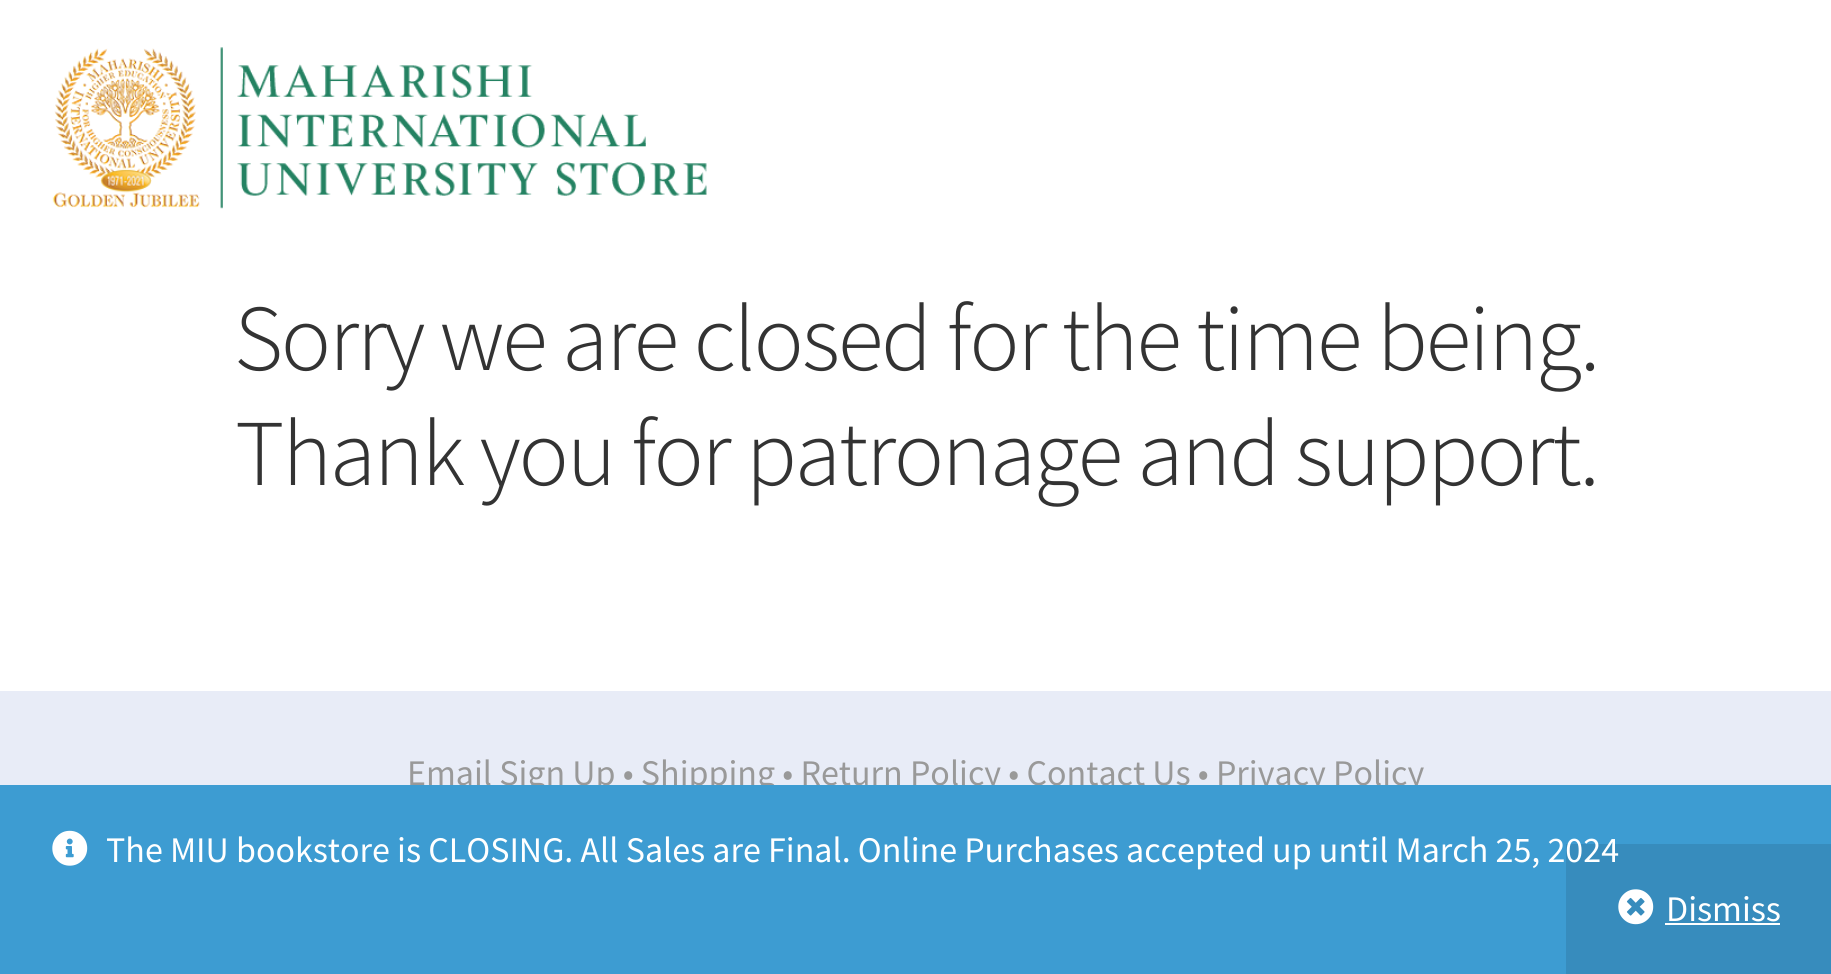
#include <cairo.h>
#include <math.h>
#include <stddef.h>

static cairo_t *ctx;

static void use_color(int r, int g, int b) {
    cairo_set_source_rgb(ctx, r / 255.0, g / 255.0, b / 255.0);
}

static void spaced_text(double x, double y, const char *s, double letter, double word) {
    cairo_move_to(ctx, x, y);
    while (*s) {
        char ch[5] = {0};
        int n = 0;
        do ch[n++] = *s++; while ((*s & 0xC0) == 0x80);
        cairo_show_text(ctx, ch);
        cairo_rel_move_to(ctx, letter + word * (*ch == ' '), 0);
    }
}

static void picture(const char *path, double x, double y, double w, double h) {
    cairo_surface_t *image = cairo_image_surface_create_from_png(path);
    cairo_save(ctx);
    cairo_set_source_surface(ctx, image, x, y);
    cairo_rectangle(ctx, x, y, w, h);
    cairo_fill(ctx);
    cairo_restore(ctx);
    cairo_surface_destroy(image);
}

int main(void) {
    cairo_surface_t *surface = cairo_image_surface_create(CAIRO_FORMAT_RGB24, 1831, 974);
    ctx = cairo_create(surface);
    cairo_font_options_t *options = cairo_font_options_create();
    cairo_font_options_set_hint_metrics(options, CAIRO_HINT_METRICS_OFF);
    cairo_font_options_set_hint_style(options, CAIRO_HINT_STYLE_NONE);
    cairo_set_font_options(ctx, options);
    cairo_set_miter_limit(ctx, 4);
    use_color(255, 255, 255);
    cairo_paint(ctx);
    picture("img1.png", 52, 47, 655, 162);
    cairo_select_font_face(ctx, "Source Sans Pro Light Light", CAIRO_FONT_SLANT_NORMAL, CAIRO_FONT_WEIGHT_NORMAL);
    cairo_set_font_size(ctx, 94.25);
    use_color(51, 51, 51);
    spaced_text(234, 370, "Sorry we are closed for the time being.", -2.25, 0);
    spaced_text(235, 485, "Thank you for patronage and support.", -2.25, 0);
    use_color(232, 236, 247);
    cairo_rectangle(ctx, 0, 691, 1831, 94);
    cairo_fill(ctx);
    cairo_select_font_face(ctx, "Source Sans Pro", CAIRO_FONT_SLANT_NORMAL, CAIRO_FONT_WEIGHT_NORMAL);
    cairo_set_font_size(ctx, 36);
    use_color(153, 153, 153);
    cairo_move_to(ctx, 407, 785);
    cairo_show_text(ctx, "Email Sign Up • Shipping • Return Policy • Contact Us • Privacy Policy");
    use_color(61, 156, 210);
    cairo_rectangle(ctx, 0, 785, 1831, 189);
    cairo_fill(ctx);
    picture("img2.png", 52, 830, 36, 36);
    use_color(55, 140, 189);
    cairo_rectangle(ctx, 1566, 844, 265, 130);
    cairo_fill(ctx);
    use_color(255, 255, 255);
    cairo_move_to(ctx, 106, 862);
    cairo_show_text(ctx, "The MIU bookstore is CLOSING. All Sales are Final. Online Purchases accepted up until March 25, 2024");
    picture("img3.png", 1618, 889, 36, 36);
    cairo_move_to(ctx, 1666, 921);
    cairo_show_text(ctx, "Dismiss");
    cairo_rectangle(ctx, 1665, 923, 115, 2);
    cairo_fill(ctx);
    cairo_surface_write_to_png(surface, "result.png");
    cairo_font_options_destroy(options);
    cairo_destroy(ctx);
    cairo_surface_destroy(surface);
    return 0;
}
